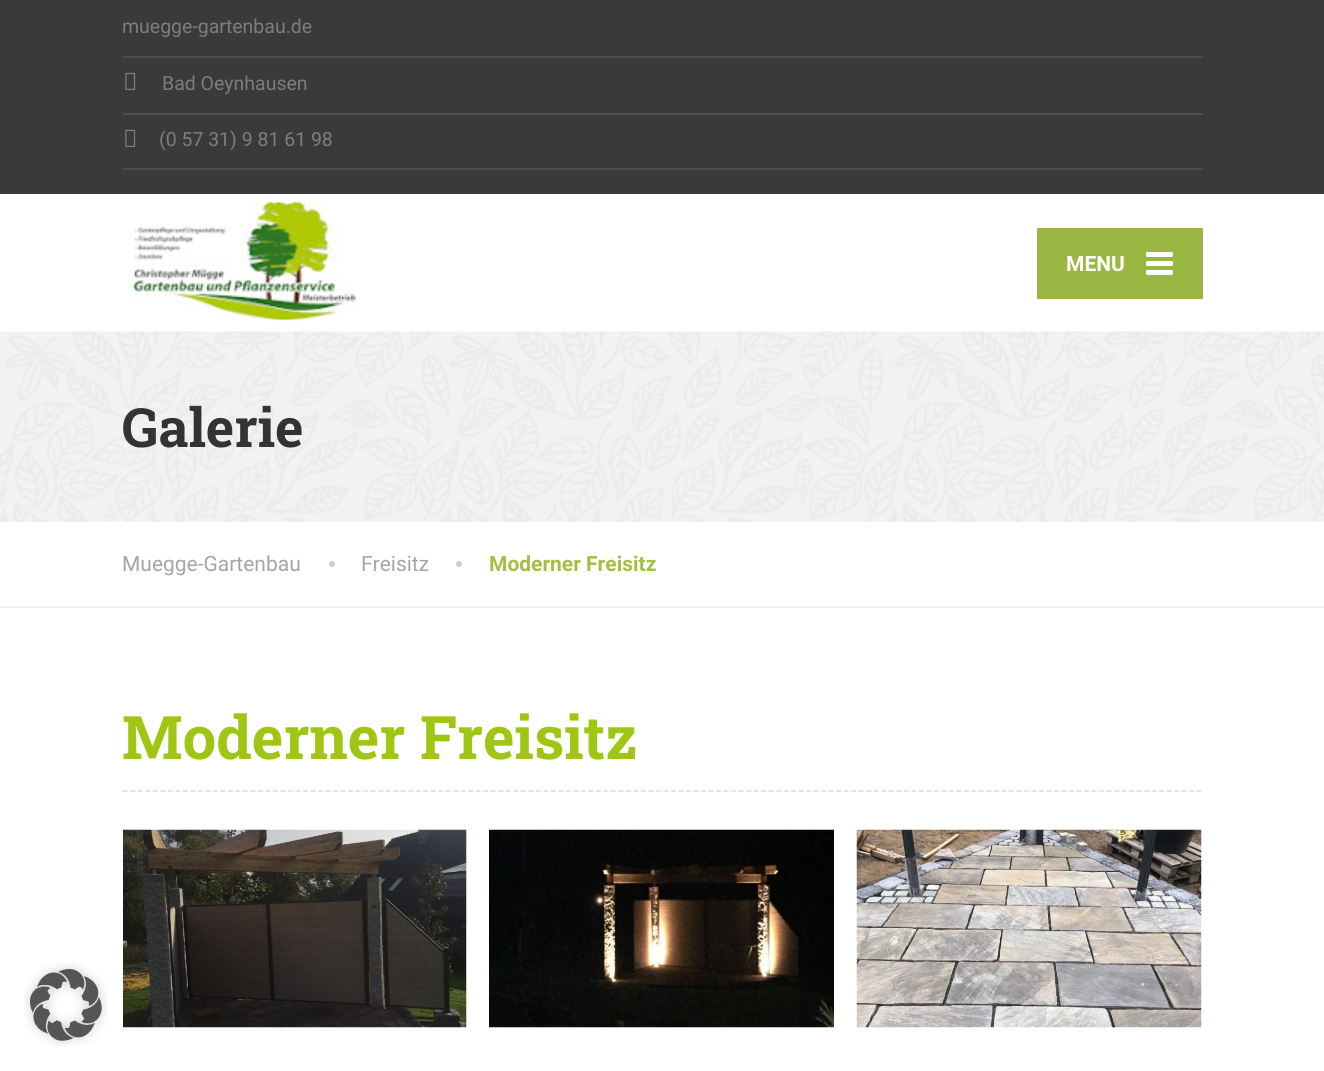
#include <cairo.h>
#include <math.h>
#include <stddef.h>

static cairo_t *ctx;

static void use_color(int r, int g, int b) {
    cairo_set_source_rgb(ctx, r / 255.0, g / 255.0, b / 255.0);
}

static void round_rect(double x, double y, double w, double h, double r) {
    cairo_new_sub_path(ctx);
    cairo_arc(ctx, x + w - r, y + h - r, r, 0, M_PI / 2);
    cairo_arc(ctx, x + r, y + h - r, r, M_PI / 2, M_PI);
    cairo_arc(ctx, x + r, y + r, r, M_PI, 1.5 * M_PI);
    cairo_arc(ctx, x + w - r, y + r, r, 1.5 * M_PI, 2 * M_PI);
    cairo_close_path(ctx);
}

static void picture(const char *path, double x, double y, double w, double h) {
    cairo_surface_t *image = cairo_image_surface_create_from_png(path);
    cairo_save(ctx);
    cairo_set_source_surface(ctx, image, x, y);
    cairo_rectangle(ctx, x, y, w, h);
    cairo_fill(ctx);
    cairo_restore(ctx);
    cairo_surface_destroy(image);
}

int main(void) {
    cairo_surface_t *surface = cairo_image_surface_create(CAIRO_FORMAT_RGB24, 1324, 1071);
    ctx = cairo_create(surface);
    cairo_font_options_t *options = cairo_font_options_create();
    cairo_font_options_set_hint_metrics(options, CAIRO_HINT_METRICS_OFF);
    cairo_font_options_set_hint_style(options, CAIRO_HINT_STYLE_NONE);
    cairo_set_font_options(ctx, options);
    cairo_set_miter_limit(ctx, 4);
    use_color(255, 255, 255);
    cairo_paint(ctx);
    use_color(58, 58, 58);
    cairo_rectangle(ctx, 0, 0, 1324, 194);
    cairo_fill(ctx);
    cairo_select_font_face(ctx, "Roboto", CAIRO_FONT_SLANT_NORMAL, CAIRO_FONT_WEIGHT_NORMAL);
    cairo_set_font_size(ctx, 19.5);
    use_color(125, 125, 125);
    cairo_move_to(ctx, 122, 33);
    cairo_show_text(ctx, "muegge-gartenbau.de");
    use_color(78, 78, 78);
    cairo_rectangle(ctx, 123, 56, 1080, 2);
    cairo_fill(ctx);
    picture("img1.png", 125, 72, 11, 18);
    use_color(125, 125, 125);
    cairo_move_to(ctx, 162, 90);
    cairo_show_text(ctx, "Bad Oeynhausen");
    use_color(78, 78, 78);
    cairo_rectangle(ctx, 123, 113, 1080, 2);
    cairo_fill(ctx);
    picture("img1.png", 125, 129, 11, 18);
    use_color(125, 125, 125);
    cairo_move_to(ctx, 159, 146);
    cairo_show_text(ctx, "(0 57 31) 9 81 61 98");
    use_color(78, 78, 78);
    cairo_rectangle(ctx, 123, 168, 1080, 2);
    cairo_fill(ctx);
    picture("img2.png", 128, 201, 228, 120);
    use_color(154, 182, 67);
    round_rect(1037, 228, 166, 71, 1.5);
    cairo_fill(ctx);
    cairo_select_font_face(ctx, "Roboto", CAIRO_FONT_SLANT_NORMAL, CAIRO_FONT_WEIGHT_BOLD);
    cairo_set_font_size(ctx, 21);
    use_color(255, 255, 255);
    cairo_move_to(ctx, 1066, 271);
    cairo_show_text(ctx, "MENU");
    round_rect(1146, 252, 27, 5, 1.5);
    cairo_fill(ctx);
    round_rect(1146, 261, 27, 5, 1.5);
    cairo_fill(ctx);
    round_rect(1146, 270, 27, 5, 1.5);
    cairo_fill(ctx);
    picture("img3.png", 0, 331, 1324, 191);
    cairo_select_font_face(ctx, "Roboto Slab", CAIRO_FONT_SLANT_NORMAL, CAIRO_FONT_WEIGHT_BOLD);
    cairo_set_font_size(ctx, 54);
    use_color(51, 51, 51);
    cairo_move_to(ctx, 122, 447);
    cairo_show_text(ctx, "Galerie");
    use_color(240, 240, 240);
    cairo_rectangle(ctx, 0, 606, 1324, 2);
    cairo_fill(ctx);
    cairo_select_font_face(ctx, "Roboto", CAIRO_FONT_SLANT_NORMAL, CAIRO_FONT_WEIGHT_NORMAL);
    cairo_set_font_size(ctx, 21);
    use_color(165, 165, 165);
    cairo_move_to(ctx, 122, 571);
    cairo_show_text(ctx, "Muegge-Gartenbau");
    use_color(206, 206, 206);
    cairo_new_path(ctx);
    cairo_arc(ctx, 332, 564, 3, 0, 2 * M_PI);
    cairo_fill(ctx);
    use_color(165, 165, 165);
    cairo_move_to(ctx, 361, 571);
    cairo_show_text(ctx, "Freisitz");
    use_color(206, 206, 206);
    cairo_new_path(ctx);
    cairo_arc(ctx, 459, 564, 3, 0, 2 * M_PI);
    cairo_fill(ctx);
    cairo_select_font_face(ctx, "Roboto", CAIRO_FONT_SLANT_NORMAL, CAIRO_FONT_WEIGHT_BOLD);
    use_color(162, 192, 70);
    cairo_move_to(ctx, 489, 571);
    cairo_show_text(ctx, "Moderner Freisitz");
    cairo_new_path(ctx);
    cairo_move_to(ctx, 123, 791);
    cairo_line_to(ctx, 1203, 791);
    use_color(220, 220, 220);
    cairo_set_line_width(ctx, 1.5);
    cairo_set_dash(ctx, (double[]){4.5, 3.01}, 2, 0);
    cairo_stroke(ctx);
    cairo_select_font_face(ctx, "Roboto Slab", CAIRO_FONT_SLANT_NORMAL, CAIRO_FONT_WEIGHT_BOLD);
    cairo_set_font_size(ctx, 60);
    use_color(159, 198, 18);
    cairo_move_to(ctx, 122, 759);
    cairo_show_text(ctx, "Moderner Freisitz");
    picture("img4.png", 123, 829, 344, 199);
    picture("img5.png", 489, 829, 345, 199);
    picture("img6.png", 856, 829, 346, 199);
    picture("img7.png", 24, 963, 84, 84);
    cairo_surface_write_to_png(surface, "result.png");
    cairo_font_options_destroy(options);
    cairo_destroy(ctx);
    cairo_surface_destroy(surface);
    return 0;
}
